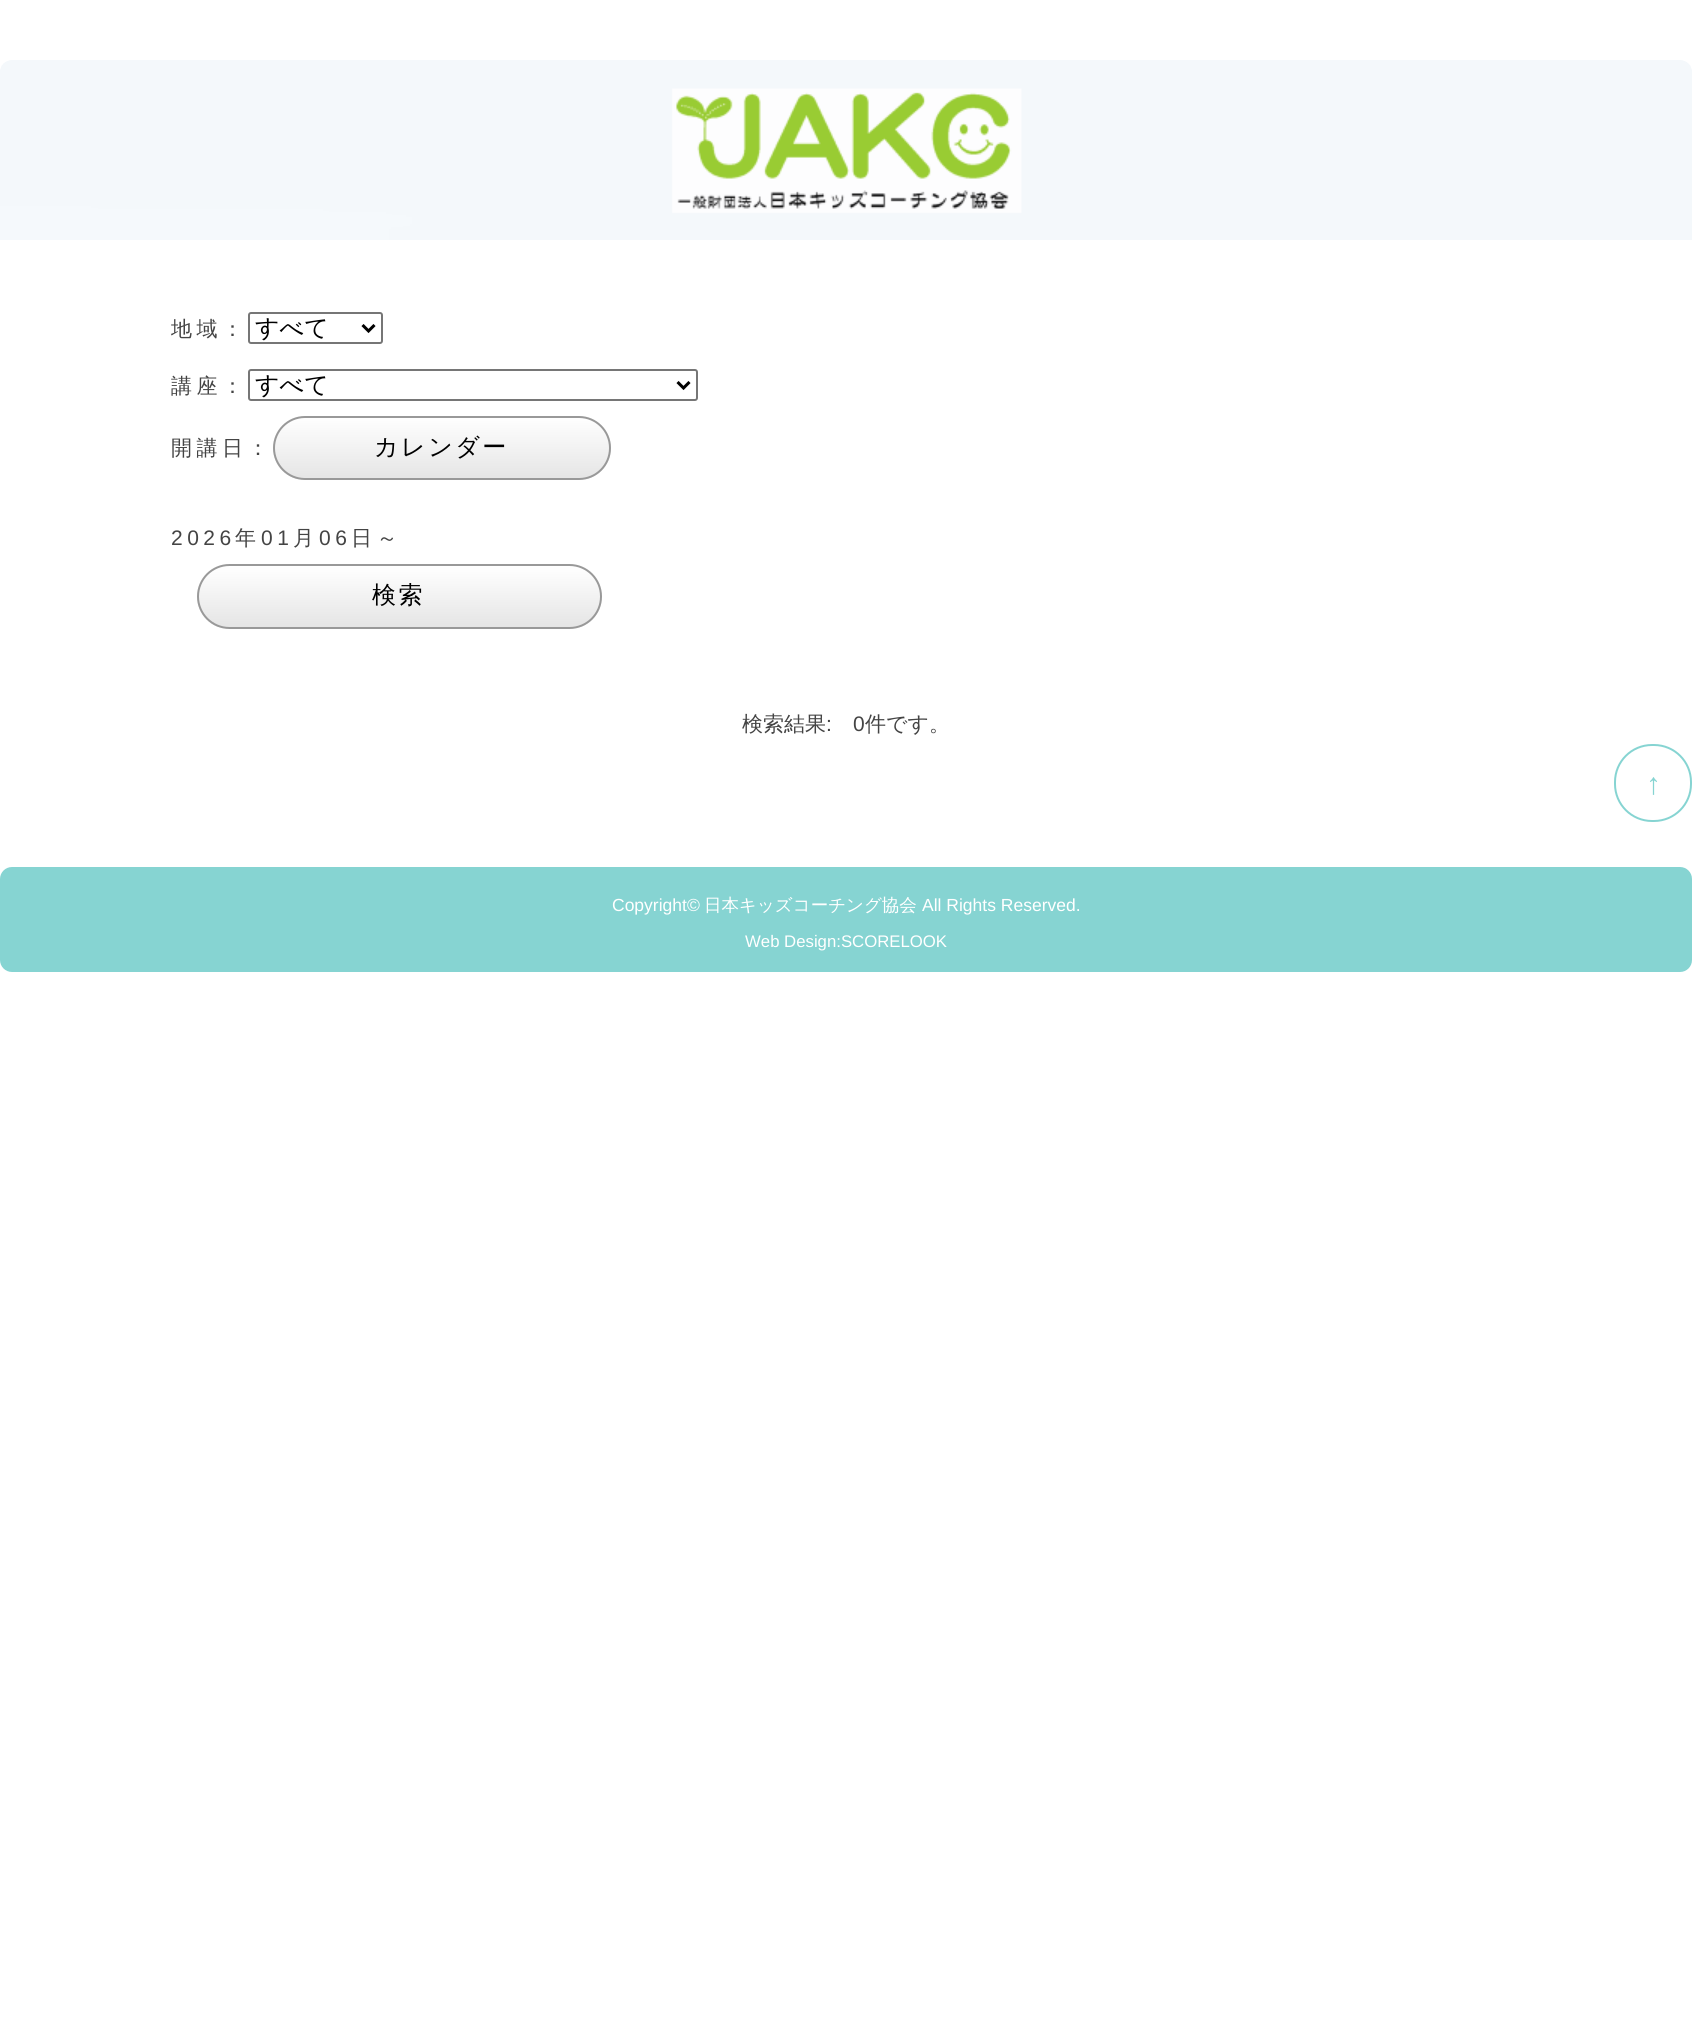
#include <cairo.h>
#include <math.h>
#include <stddef.h>

static cairo_t *ctx;

static void use_color(int r, int g, int b) {
    cairo_set_source_rgb(ctx, r / 255.0, g / 255.0, b / 255.0);
}

static void spaced_text(double x, double y, const char *s, double letter, double word) {
    cairo_move_to(ctx, x, y);
    while (*s) {
        char ch[5] = {0};
        int n = 0;
        do ch[n++] = *s++; while ((*s & 0xC0) == 0x80);
        cairo_show_text(ctx, ch);
        cairo_rel_move_to(ctx, letter + word * (*ch == ' '), 0);
    }
}

static void round_rect(double x, double y, double w, double h, double r) {
    cairo_new_sub_path(ctx);
    cairo_arc(ctx, x + w - r, y + h - r, r, 0, M_PI / 2);
    cairo_arc(ctx, x + r, y + h - r, r, M_PI / 2, M_PI);
    cairo_arc(ctx, x + r, y + r, r, M_PI, 1.5 * M_PI);
    cairo_arc(ctx, x + w - r, y + r, r, 1.5 * M_PI, 2 * M_PI);
    cairo_close_path(ctx);
}

static void picture(const char *path, double x, double y, double w, double h) {
    cairo_surface_t *image = cairo_image_surface_create_from_png(path);
    cairo_save(ctx);
    cairo_set_source_surface(ctx, image, x, y);
    cairo_rectangle(ctx, x, y, w, h);
    cairo_fill(ctx);
    cairo_restore(ctx);
    cairo_surface_destroy(image);
}

int main(void) {
    cairo_surface_t *surface = cairo_image_surface_create(CAIRO_FORMAT_RGB24, 1692, 2032);
    ctx = cairo_create(surface);
    cairo_font_options_t *options = cairo_font_options_create();
    cairo_font_options_set_hint_metrics(options, CAIRO_HINT_METRICS_OFF);
    cairo_font_options_set_hint_style(options, CAIRO_HINT_STYLE_NONE);
    cairo_set_font_options(ctx, options);
    cairo_set_miter_limit(ctx, 4);
    cairo_pattern_t *gradient;
    use_color(255, 255, 255);
    cairo_paint(ctx);
    picture("img1.png", 0, 60, 1692, 180);
    cairo_select_font_face(ctx, "WenQuanYi Zen Hei Medium", CAIRO_FONT_SLANT_NORMAL, CAIRO_FONT_WEIGHT_NORMAL);
    cairo_set_font_size(ctx, 21);
    use_color(68, 68, 68);
    spaced_text(171, 336, "地域：", 4.5, 0);
    round_rect(249, 313, 133, 30, 2);
    use_color(118, 118, 118);
    cairo_stroke(ctx);
    cairo_new_path(ctx);
    cairo_move_to(ctx, 362.5, 325);
    cairo_line_to(ctx, 368.5, 331);
    cairo_line_to(ctx, 374.5, 325);
    use_color(0, 0, 0);
    cairo_set_line_width(ctx, 3);
    cairo_stroke(ctx);
    cairo_set_font_size(ctx, 24);
    cairo_move_to(ctx, 255, 336);
    cairo_show_text(ctx, "すべて");
    cairo_set_font_size(ctx, 21);
    use_color(68, 68, 68);
    spaced_text(171, 393, "講座：", 4.5, 0);
    round_rect(249, 370, 448, 30, 2);
    use_color(118, 118, 118);
    cairo_set_line_width(ctx, 2);
    cairo_stroke(ctx);
    cairo_new_path(ctx);
    cairo_move_to(ctx, 677.5, 382);
    cairo_line_to(ctx, 683.5, 388);
    cairo_line_to(ctx, 689.5, 382);
    use_color(0, 0, 0);
    cairo_set_line_width(ctx, 3);
    cairo_stroke(ctx);
    cairo_set_font_size(ctx, 24);
    cairo_move_to(ctx, 255, 393);
    cairo_show_text(ctx, "すべて");
    cairo_set_font_size(ctx, 21);
    use_color(68, 68, 68);
    spaced_text(171, 455, "開講日：", 4.5, 0);
    cairo_save(ctx);
    round_rect(273, 416, 338, 64, 32);
    cairo_clip(ctx);
    gradient = cairo_pattern_create_linear(442, 417, 442, 479);
    cairo_pattern_add_color_stop_rgba(gradient, 0, 1, 1, 1, 1);
    cairo_pattern_add_color_stop_rgba(gradient, 1, 0.898, 0.898, 0.898, 1);
    cairo_set_source(ctx, gradient);
    cairo_pattern_destroy(gradient);
    cairo_rectangle(ctx, 273, 417, 338, 62);
    cairo_fill(ctx);
    cairo_restore(ctx);
    round_rect(274, 417, 336, 62, 31);
    use_color(153, 153, 153);
    cairo_set_line_width(ctx, 2);
    cairo_stroke(ctx);
    cairo_set_font_size(ctx, 24);
    use_color(0, 0, 0);
    spaced_text(374, 455, "カレンダー", 2.5, 0);
    cairo_select_font_face(ctx, "Liberation Sans", CAIRO_FONT_SLANT_NORMAL, CAIRO_FONT_WEIGHT_NORMAL);
    cairo_set_font_size(ctx, 21);
    use_color(68, 68, 68);
    spaced_text(171, 545, "2026", 4.5, 0);
    cairo_select_font_face(ctx, "WenQuanYi Zen Hei Medium", CAIRO_FONT_SLANT_NORMAL, CAIRO_FONT_WEIGHT_NORMAL);
    spaced_text(235, 545, "年", 4.5, 0);
    cairo_select_font_face(ctx, "Liberation Sans", CAIRO_FONT_SLANT_NORMAL, CAIRO_FONT_WEIGHT_NORMAL);
    spaced_text(261, 545, "01", 4.5, 0);
    cairo_select_font_face(ctx, "WenQuanYi Zen Hei Medium", CAIRO_FONT_SLANT_NORMAL, CAIRO_FONT_WEIGHT_NORMAL);
    spaced_text(293, 545, "月", 4.5, 0);
    cairo_select_font_face(ctx, "Liberation Sans", CAIRO_FONT_SLANT_NORMAL, CAIRO_FONT_WEIGHT_NORMAL);
    spaced_text(319, 545, "06", 4.5, 0);
    cairo_select_font_face(ctx, "WenQuanYi Zen Hei Medium", CAIRO_FONT_SLANT_NORMAL, CAIRO_FONT_WEIGHT_NORMAL);
    spaced_text(351, 545, "日～", 4.5, 0);
    cairo_save(ctx);
    round_rect(197, 564, 405, 65, 32.5);
    cairo_clip(ctx);
    gradient = cairo_pattern_create_linear(399, 566, 399, 627);
    cairo_pattern_add_color_stop_rgba(gradient, 0, 1, 1, 1, 1);
    cairo_pattern_add_color_stop_rgba(gradient, 1, 0.898, 0.898, 0.898, 1);
    cairo_set_source(ctx, gradient);
    cairo_pattern_destroy(gradient);
    cairo_rectangle(ctx, 197, 566, 405, 61);
    cairo_fill(ctx);
    cairo_restore(ctx);
    round_rect(198, 565, 403, 63, 31.5);
    use_color(153, 153, 153);
    cairo_stroke(ctx);
    cairo_set_font_size(ctx, 24);
    use_color(0, 0, 0);
    spaced_text(372, 603, "検索", 2.5, 0);
    cairo_set_font_size(ctx, 21);
    use_color(68, 68, 68);
    cairo_move_to(ctx, 742, 731);
    cairo_show_text(ctx, "検索結果");
    cairo_select_font_face(ctx, "Liberation Sans", CAIRO_FONT_SLANT_NORMAL, CAIRO_FONT_WEIGHT_NORMAL);
    cairo_move_to(ctx, 826, 731);
    cairo_show_text(ctx, ":");
    cairo_move_to(ctx, 853, 731);
    cairo_show_text(ctx, "0");
    cairo_select_font_face(ctx, "WenQuanYi Zen Hei Medium", CAIRO_FONT_SLANT_NORMAL, CAIRO_FONT_WEIGHT_NORMAL);
    cairo_move_to(ctx, 865, 731);
    cairo_show_text(ctx, "件です。");
    round_rect(1615, 745, 76, 76, 37);
    use_color(134, 212, 210);
    cairo_stroke(ctx);
    cairo_select_font_face(ctx, "Liberation Sans", CAIRO_FONT_SLANT_NORMAL, CAIRO_FONT_WEIGHT_NORMAL);
    cairo_set_font_size(ctx, 30);
    cairo_move_to(ctx, 1646, 794);
    cairo_show_text(ctx, "↑");
    round_rect(0, 867, 1692, 105, 12);
    cairo_fill(ctx);
    cairo_set_font_size(ctx, 17.5);
    use_color(255, 255, 255);
    cairo_move_to(ctx, 612, 911);
    cairo_show_text(ctx, "Copyright©");
    cairo_select_font_face(ctx, "WenQuanYi Zen Hei Medium", CAIRO_FONT_SLANT_NORMAL, CAIRO_FONT_WEIGHT_NORMAL);
    cairo_move_to(ctx, 704, 911);
    cairo_show_text(ctx, "日本キッズコーチング協会");
    cairo_select_font_face(ctx, "Liberation Sans", CAIRO_FONT_SLANT_NORMAL, CAIRO_FONT_WEIGHT_NORMAL);
    cairo_move_to(ctx, 922, 911);
    cairo_show_text(ctx, "All Rights Reserved.");
    cairo_set_font_size(ctx, 16.75);
    cairo_move_to(ctx, 745, 947);
    cairo_show_text(ctx, "Web Design:SCORELOOK");
    cairo_surface_write_to_png(surface, "result.png");
    cairo_font_options_destroy(options);
    cairo_destroy(ctx);
    cairo_surface_destroy(surface);
    return 0;
}
